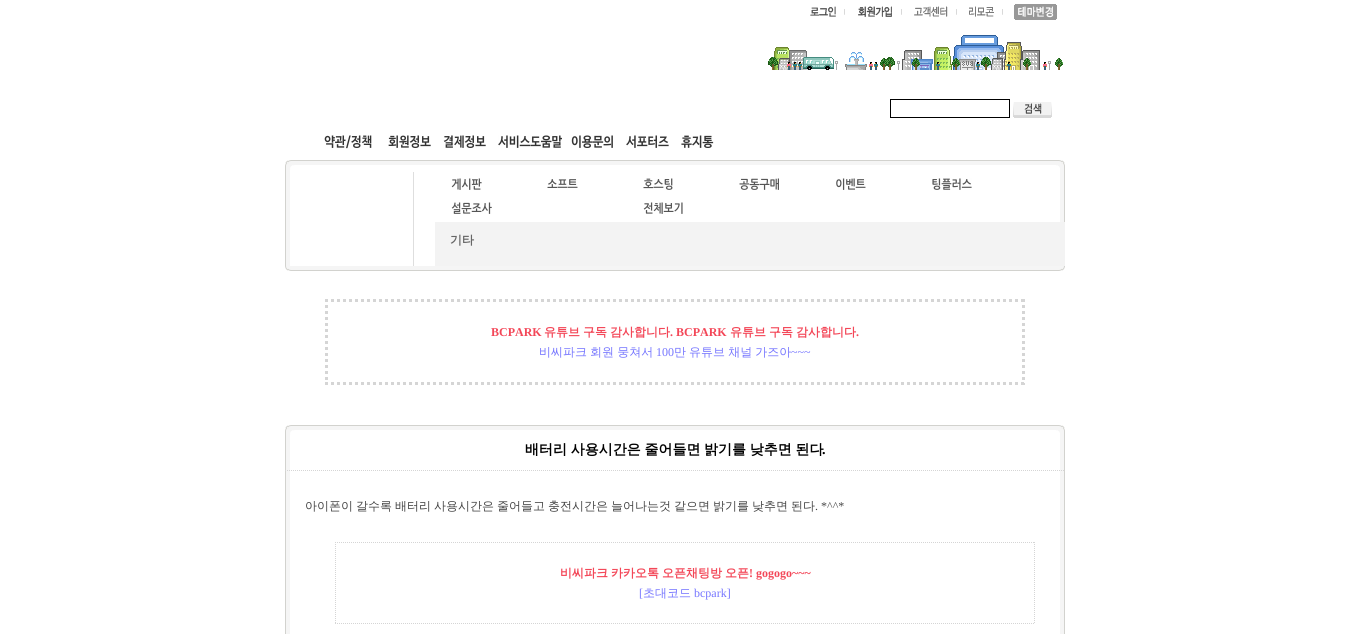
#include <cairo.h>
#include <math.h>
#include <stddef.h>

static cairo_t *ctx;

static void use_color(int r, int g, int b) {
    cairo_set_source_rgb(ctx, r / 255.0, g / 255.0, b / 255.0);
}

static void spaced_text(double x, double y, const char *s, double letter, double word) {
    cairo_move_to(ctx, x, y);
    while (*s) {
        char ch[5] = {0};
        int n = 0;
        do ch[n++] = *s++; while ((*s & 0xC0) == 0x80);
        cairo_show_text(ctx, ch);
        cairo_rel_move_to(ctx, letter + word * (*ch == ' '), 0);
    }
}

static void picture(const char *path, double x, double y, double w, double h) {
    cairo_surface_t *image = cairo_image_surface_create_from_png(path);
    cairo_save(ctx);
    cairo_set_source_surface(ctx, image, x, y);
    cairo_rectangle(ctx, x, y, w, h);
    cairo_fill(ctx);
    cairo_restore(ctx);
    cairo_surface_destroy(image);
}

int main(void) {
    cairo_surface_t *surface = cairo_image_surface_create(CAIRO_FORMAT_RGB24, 1350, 634);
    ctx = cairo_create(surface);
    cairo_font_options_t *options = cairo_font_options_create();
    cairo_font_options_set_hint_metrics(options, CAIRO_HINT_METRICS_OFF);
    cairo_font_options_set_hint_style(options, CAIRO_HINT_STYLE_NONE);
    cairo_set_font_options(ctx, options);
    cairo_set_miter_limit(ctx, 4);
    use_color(255, 255, 255);
    cairo_paint(ctx);
    picture("img1.png", 810, 6, 35, 11);
    picture("img2.png", 858, 6, 44, 11);
    picture("img3.png", 914, 6, 43, 11);
    picture("img4.png", 969, 6, 34, 11);
    picture("img5.png", 1014, 4, 43, 16);
    picture("img6.png", 768, 35, 295, 35);
    cairo_rectangle(ctx, 890.5, 99.5, 119, 18);
    use_color(0, 0, 0);
    cairo_set_line_width(ctx, 1);
    cairo_stroke(ctx);
    picture("img7.png", 1013, 102, 39, 16);
    picture("img8.png", 324, 135, 48, 14);
    picture("img9.png", 388, 135, 43, 13);
    picture("img10.png", 443, 135, 43, 13);
    picture("img11.png", 498, 135, 64, 13);
    picture("img12.png", 571, 135, 42, 13);
    picture("img13.png", 626, 135, 43, 13);
    picture("img14.png", 681, 135, 33, 13);
    picture("img15.png", 285, 172, 780, 50);
    picture("img16.png", 285, 160, 780, 12);
    picture("img17.png", 451, 178, 31, 12);
    picture("img18.png", 547, 179, 31, 9);
    picture("img19.png", 643, 178, 30, 12);
    picture("img20.png", 739, 178, 40, 12);
    picture("img21.png", 836, 178, 30, 12);
    picture("img22.png", 932, 178, 40, 12);
    picture("img23.png", 451, 202, 41, 12);
    picture("img24.png", 643, 202, 40, 12);
    picture("img25.png", 285, 222, 150, 44);
    use_color(243, 243, 243);
    cairo_rectangle(ctx, 435, 222, 630, 44);
    cairo_fill(ctx);
    cairo_select_font_face(ctx, "WenQuanYi Zen Hei", CAIRO_FONT_SLANT_NORMAL, CAIRO_FONT_WEIGHT_BOLD);
    cairo_set_font_size(ctx, 12);
    use_color(102, 102, 102);
    cairo_move_to(ctx, 450, 244);
    cairo_show_text(ctx, "기타");
    picture("img26.png", 285, 266, 780, 5);
    cairo_new_path(ctx);
    cairo_move_to(ctx, 325, 300.5);
    cairo_line_to(ctx, 1025, 300.5);
    use_color(213, 213, 213);
    cairo_set_line_width(ctx, 3);
    cairo_set_dash(ctx, (double[]){3, 3}, 2, 0);
    cairo_stroke(ctx);
    cairo_new_path(ctx);
    cairo_move_to(ctx, 1023.5, 299);
    cairo_line_to(ctx, 1023.5, 385);
    cairo_stroke(ctx);
    cairo_new_path(ctx);
    cairo_move_to(ctx, 325, 383.5);
    cairo_line_to(ctx, 1025, 383.5);
    cairo_stroke(ctx);
    cairo_new_path(ctx);
    cairo_move_to(ctx, 326.5, 299);
    cairo_line_to(ctx, 326.5, 385);
    cairo_stroke(ctx);
    cairo_select_font_face(ctx, "Liberation Serif", CAIRO_FONT_SLANT_NORMAL, CAIRO_FONT_WEIGHT_BOLD);
    use_color(243, 71, 88);
    cairo_move_to(ctx, 491, 336);
    cairo_show_text(ctx, "BCPARK");
    cairo_select_font_face(ctx, "WenQuanYi Zen Hei", CAIRO_FONT_SLANT_NORMAL, CAIRO_FONT_WEIGHT_BOLD);
    cairo_move_to(ctx, 544, 336);
    cairo_show_text(ctx, "유튜브");
    cairo_move_to(ctx, 583, 336);
    cairo_show_text(ctx, "구독");
    cairo_move_to(ctx, 610, 336);
    cairo_show_text(ctx, "감사합니다");
    cairo_select_font_face(ctx, "Liberation Serif", CAIRO_FONT_SLANT_NORMAL, CAIRO_FONT_WEIGHT_BOLD);
    cairo_move_to(ctx, 670, 336);
    cairo_show_text(ctx, ". BCPARK");
    cairo_select_font_face(ctx, "WenQuanYi Zen Hei", CAIRO_FONT_SLANT_NORMAL, CAIRO_FONT_WEIGHT_BOLD);
    cairo_move_to(ctx, 730, 336);
    cairo_show_text(ctx, "유튜브");
    cairo_move_to(ctx, 769, 336);
    cairo_show_text(ctx, "구독");
    cairo_move_to(ctx, 796, 336);
    cairo_show_text(ctx, "감사합니다");
    cairo_select_font_face(ctx, "Liberation Serif", CAIRO_FONT_SLANT_NORMAL, CAIRO_FONT_WEIGHT_BOLD);
    cairo_move_to(ctx, 856, 336);
    cairo_show_text(ctx, ".");
    cairo_select_font_face(ctx, "WenQuanYi Zen Hei Medium", CAIRO_FONT_SLANT_NORMAL, CAIRO_FONT_WEIGHT_NORMAL);
    use_color(117, 117, 255);
    spaced_text(539, 356, "비씨파크 회원 뭉쳐서", 0, -0.5);
    cairo_select_font_face(ctx, "Liberation Serif", CAIRO_FONT_SLANT_NORMAL, CAIRO_FONT_WEIGHT_NORMAL);
    cairo_move_to(ctx, 656, 356);
    cairo_show_text(ctx, "100");
    cairo_select_font_face(ctx, "WenQuanYi Zen Hei Medium", CAIRO_FONT_SLANT_NORMAL, CAIRO_FONT_WEIGHT_NORMAL);
    spaced_text(674, 356, "만 유튜브 채널 가즈아", 0, -0.5);
    cairo_select_font_face(ctx, "Liberation Serif", CAIRO_FONT_SLANT_NORMAL, CAIRO_FONT_WEIGHT_NORMAL);
    cairo_move_to(ctx, 791, 356);
    cairo_show_text(ctx, "~~~");
    picture("img27.png", 285, 425, 780, 10);
    picture("img28.png", 285, 435, 780, 35);
    picture("img29.png", 285, 470, 780, 164);
    cairo_new_path(ctx);
    cairo_move_to(ctx, 285, 470.5);
    cairo_line_to(ctx, 1065, 470.5);
    use_color(213, 213, 213);
    cairo_set_line_width(ctx, 1);
    cairo_set_dash(ctx, (double[]){1, 1}, 2, 0);
    cairo_stroke(ctx);
    cairo_select_font_face(ctx, "WenQuanYi Zen Hei", CAIRO_FONT_SLANT_NORMAL, CAIRO_FONT_WEIGHT_BOLD);
    cairo_set_font_size(ctx, 14);
    use_color(0, 0, 0);
    spaced_text(525, 454, "배터리 사용시간은 줄어들면 밝기를 낮추면 된다", 0, -0.5);
    cairo_select_font_face(ctx, "Liberation Serif", CAIRO_FONT_SLANT_NORMAL, CAIRO_FONT_WEIGHT_BOLD);
    cairo_move_to(ctx, 822, 454);
    cairo_show_text(ctx, ".");
    cairo_select_font_face(ctx, "WenQuanYi Zen Hei Medium", CAIRO_FONT_SLANT_NORMAL, CAIRO_FONT_WEIGHT_NORMAL);
    cairo_set_font_size(ctx, 12);
    use_color(68, 68, 68);
    cairo_move_to(ctx, 305, 510);
    cairo_show_text(ctx, "아이폰이");
    cairo_move_to(ctx, 356, 510);
    cairo_show_text(ctx, "갈수록");
    cairo_move_to(ctx, 395, 510);
    cairo_show_text(ctx, "배터리");
    cairo_move_to(ctx, 434, 510);
    cairo_show_text(ctx, "사용시간은");
    cairo_move_to(ctx, 497, 510);
    cairo_show_text(ctx, "줄어들고");
    cairo_move_to(ctx, 548, 510);
    cairo_show_text(ctx, "충전시간은");
    cairo_move_to(ctx, 611, 510);
    cairo_show_text(ctx, "늘어나는것");
    cairo_move_to(ctx, 674, 510);
    cairo_show_text(ctx, "같으면");
    cairo_move_to(ctx, 713, 510);
    cairo_show_text(ctx, "밝기를");
    cairo_move_to(ctx, 752, 510);
    cairo_show_text(ctx, "낮추면");
    cairo_move_to(ctx, 791, 510);
    cairo_show_text(ctx, "된다");
    cairo_select_font_face(ctx, "Liberation Serif", CAIRO_FONT_SLANT_NORMAL, CAIRO_FONT_WEIGHT_NORMAL);
    cairo_move_to(ctx, 815, 510);
    cairo_show_text(ctx, ". *^^*");
    cairo_new_path(ctx);
    cairo_move_to(ctx, 335, 542.5);
    cairo_line_to(ctx, 1035, 542.5);
    use_color(213, 213, 213);
    cairo_stroke(ctx);
    cairo_new_path(ctx);
    cairo_move_to(ctx, 1034.5, 542);
    cairo_line_to(ctx, 1034.5, 624);
    cairo_stroke(ctx);
    cairo_new_path(ctx);
    cairo_move_to(ctx, 335, 623.5);
    cairo_line_to(ctx, 1035, 623.5);
    cairo_stroke(ctx);
    cairo_new_path(ctx);
    cairo_move_to(ctx, 335.5, 542);
    cairo_line_to(ctx, 335.5, 624);
    cairo_stroke(ctx);
    cairo_select_font_face(ctx, "WenQuanYi Zen Hei", CAIRO_FONT_SLANT_NORMAL, CAIRO_FONT_WEIGHT_BOLD);
    use_color(243, 71, 88);
    cairo_move_to(ctx, 560, 577);
    cairo_show_text(ctx, "비씨파크");
    cairo_move_to(ctx, 611, 577);
    cairo_show_text(ctx, "카카오톡");
    cairo_move_to(ctx, 662, 577);
    cairo_show_text(ctx, "오픈채팅방");
    cairo_move_to(ctx, 725, 577);
    cairo_show_text(ctx, "오픈");
    cairo_select_font_face(ctx, "Liberation Serif", CAIRO_FONT_SLANT_NORMAL, CAIRO_FONT_WEIGHT_BOLD);
    cairo_move_to(ctx, 749, 577);
    cairo_show_text(ctx, "! gogogo~~~");
    cairo_select_font_face(ctx, "Liberation Serif", CAIRO_FONT_SLANT_NORMAL, CAIRO_FONT_WEIGHT_NORMAL);
    use_color(117, 117, 255);
    cairo_move_to(ctx, 639, 597);
    cairo_show_text(ctx, "[");
    cairo_select_font_face(ctx, "WenQuanYi Zen Hei Medium", CAIRO_FONT_SLANT_NORMAL, CAIRO_FONT_WEIGHT_NORMAL);
    cairo_move_to(ctx, 643, 597);
    cairo_show_text(ctx, "초대코드");
    cairo_select_font_face(ctx, "Liberation Serif", CAIRO_FONT_SLANT_NORMAL, CAIRO_FONT_WEIGHT_NORMAL);
    cairo_move_to(ctx, 694, 597);
    cairo_show_text(ctx, "bcpark]");
    cairo_surface_write_to_png(surface, "result.png");
    cairo_font_options_destroy(options);
    cairo_destroy(ctx);
    cairo_surface_destroy(surface);
    return 0;
}
